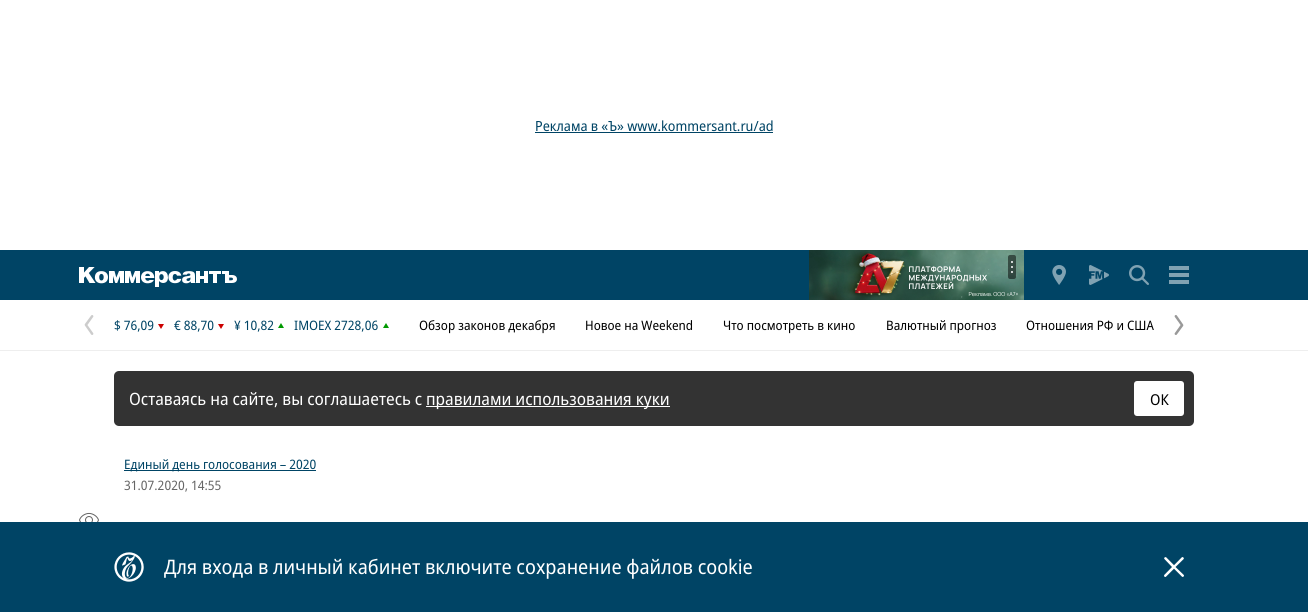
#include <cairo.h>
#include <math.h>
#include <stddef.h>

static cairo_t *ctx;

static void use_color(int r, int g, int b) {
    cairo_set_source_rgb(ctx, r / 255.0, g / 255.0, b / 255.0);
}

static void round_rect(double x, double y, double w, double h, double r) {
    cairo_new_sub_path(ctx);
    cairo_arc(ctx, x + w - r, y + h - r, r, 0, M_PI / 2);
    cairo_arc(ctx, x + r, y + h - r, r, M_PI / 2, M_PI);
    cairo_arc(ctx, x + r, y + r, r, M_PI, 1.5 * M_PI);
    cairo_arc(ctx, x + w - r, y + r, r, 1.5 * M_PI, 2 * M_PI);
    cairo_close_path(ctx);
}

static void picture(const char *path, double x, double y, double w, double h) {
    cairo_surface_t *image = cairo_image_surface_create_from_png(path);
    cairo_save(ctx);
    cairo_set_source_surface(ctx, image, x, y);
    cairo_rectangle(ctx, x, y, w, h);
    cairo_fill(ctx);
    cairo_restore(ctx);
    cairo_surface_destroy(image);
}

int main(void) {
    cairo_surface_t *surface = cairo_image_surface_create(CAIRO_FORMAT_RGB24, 1308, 612);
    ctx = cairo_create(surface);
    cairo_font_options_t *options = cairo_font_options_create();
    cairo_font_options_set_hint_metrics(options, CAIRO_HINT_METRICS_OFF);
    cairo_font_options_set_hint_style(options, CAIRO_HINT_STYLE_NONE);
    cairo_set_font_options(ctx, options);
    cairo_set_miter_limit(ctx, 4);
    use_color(255, 255, 255);
    cairo_paint(ctx);
    cairo_select_font_face(ctx, "Noto Sans", CAIRO_FONT_SLANT_NORMAL, CAIRO_FONT_WEIGHT_NORMAL);
    cairo_set_font_size(ctx, 14);
    use_color(0, 68, 101);
    cairo_move_to(ctx, 535, 131);
    cairo_show_text(ctx, "Реклама в «Ъ» www.kommersant.ru/ad");
    cairo_rectangle(ctx, 535, 132, 238, 1);
    cairo_fill(ctx);
    cairo_rectangle(ctx, 0, 250, 1308, 50);
    cairo_fill(ctx);
    picture("img1.png", 79, 267, 158, 20);
    picture("img2.png", 809, 250, 215, 50);
    cairo_set_source_rgba(ctx, 0, 0, 0, 0.5);
    round_rect(1008, 255, 8, 24, 2);
    cairo_fill(ctx);
    picture("img3.png", 1011, 261, 2, 12);
    picture("img4.png", 1052, 265, 14, 20);
    picture("img5.png", 1089, 265, 20, 20);
    picture("img6.png", 1129, 265, 20, 20);
    picture("img7.png", 1169, 266, 20, 18);
    use_color(238, 238, 238);
    cairo_rectangle(ctx, 0, 350, 1308, 1);
    cairo_fill(ctx);
    picture("img8.png", 84, 315, 10, 20);
    cairo_set_font_size(ctx, 13);
    use_color(0, 68, 101);
    cairo_move_to(ctx, 114, 330);
    cairo_show_text(ctx, "$ 76,09");
    use_color(204, 0, 0);
    cairo_new_path(ctx);
    cairo_move_to(ctx, 158, 324);
    cairo_line_to(ctx, 164, 324);
    cairo_line_to(ctx, 161, 329);
    cairo_close_path(ctx);
    cairo_fill(ctx);
    use_color(0, 68, 101);
    cairo_move_to(ctx, 174, 330);
    cairo_show_text(ctx, "€ 88,70");
    use_color(204, 0, 0);
    cairo_new_path(ctx);
    cairo_move_to(ctx, 218, 324);
    cairo_line_to(ctx, 224, 324);
    cairo_line_to(ctx, 221, 329);
    cairo_close_path(ctx);
    cairo_fill(ctx);
    use_color(0, 68, 101);
    cairo_move_to(ctx, 234, 330);
    cairo_show_text(ctx, "¥ 10,82");
    use_color(0, 153, 0);
    cairo_new_path(ctx);
    cairo_move_to(ctx, 284, 328);
    cairo_line_to(ctx, 278, 328);
    cairo_line_to(ctx, 281, 323);
    cairo_close_path(ctx);
    cairo_fill(ctx);
    use_color(0, 68, 101);
    cairo_move_to(ctx, 294, 330);
    cairo_show_text(ctx, "IMOEX 2728,06");
    use_color(0, 153, 0);
    cairo_new_path(ctx);
    cairo_move_to(ctx, 389, 328);
    cairo_line_to(ctx, 383, 328);
    cairo_line_to(ctx, 386, 323);
    cairo_close_path(ctx);
    cairo_fill(ctx);
    use_color(0, 0, 0);
    cairo_move_to(ctx, 419, 330);
    cairo_show_text(ctx, "Обзор законов декабря");
    cairo_move_to(ctx, 585, 330);
    cairo_show_text(ctx, "Новое на Weekend");
    cairo_move_to(ctx, 723, 330);
    cairo_show_text(ctx, "Что посмотреть в кино");
    cairo_move_to(ctx, 886, 330);
    cairo_show_text(ctx, "Валютный прогноз");
    cairo_move_to(ctx, 1026, 330);
    cairo_show_text(ctx, "Отношения РФ и США");
    picture("img9.png", 1174, 315, 10, 20);
    use_color(51, 51, 51);
    round_rect(114, 371, 1080, 55, 5);
    cairo_fill(ctx);
    cairo_set_font_size(ctx, 17);
    use_color(255, 255, 255);
    cairo_move_to(ctx, 129, 405);
    cairo_show_text(ctx, "Оставаясь на сайте, вы соглашаетесь с");
    cairo_rectangle(ctx, 426, 406, 244, 1);
    cairo_fill(ctx);
    cairo_move_to(ctx, 426, 405);
    cairo_show_text(ctx, "правилами использования куки");
    round_rect(1134, 381, 50, 35, 3);
    cairo_fill(ctx);
    cairo_set_font_size(ctx, 15);
    use_color(0, 0, 0);
    cairo_move_to(ctx, 1150, 405);
    cairo_show_text(ctx, "ОК");
    use_color(0, 68, 101);
    cairo_rectangle(ctx, 124, 470, 192, 1);
    cairo_fill(ctx);
    cairo_set_font_size(ctx, 13);
    cairo_move_to(ctx, 124, 469);
    cairo_show_text(ctx, "Единый день голосования – 2020");
    use_color(102, 102, 102);
    cairo_move_to(ctx, 124, 490);
    cairo_show_text(ctx, "31.07.2020, 14:55");
    picture("img10.png", 79, 512, 20, 10);
    use_color(0, 68, 101);
    cairo_rectangle(ctx, 0, 522, 1308, 90);
    cairo_fill(ctx);
    picture("img11.png", 114, 552, 30, 30);
    cairo_set_font_size(ctx, 20);
    use_color(255, 255, 255);
    cairo_move_to(ctx, 164, 574);
    cairo_show_text(ctx, "Для входа в личный кабинет включите сохранение файлов cookie");
    picture("img12.png", 1164, 557, 20, 20);
    cairo_surface_write_to_png(surface, "result.png");
    cairo_font_options_destroy(options);
    cairo_destroy(ctx);
    cairo_surface_destroy(surface);
    return 0;
}
